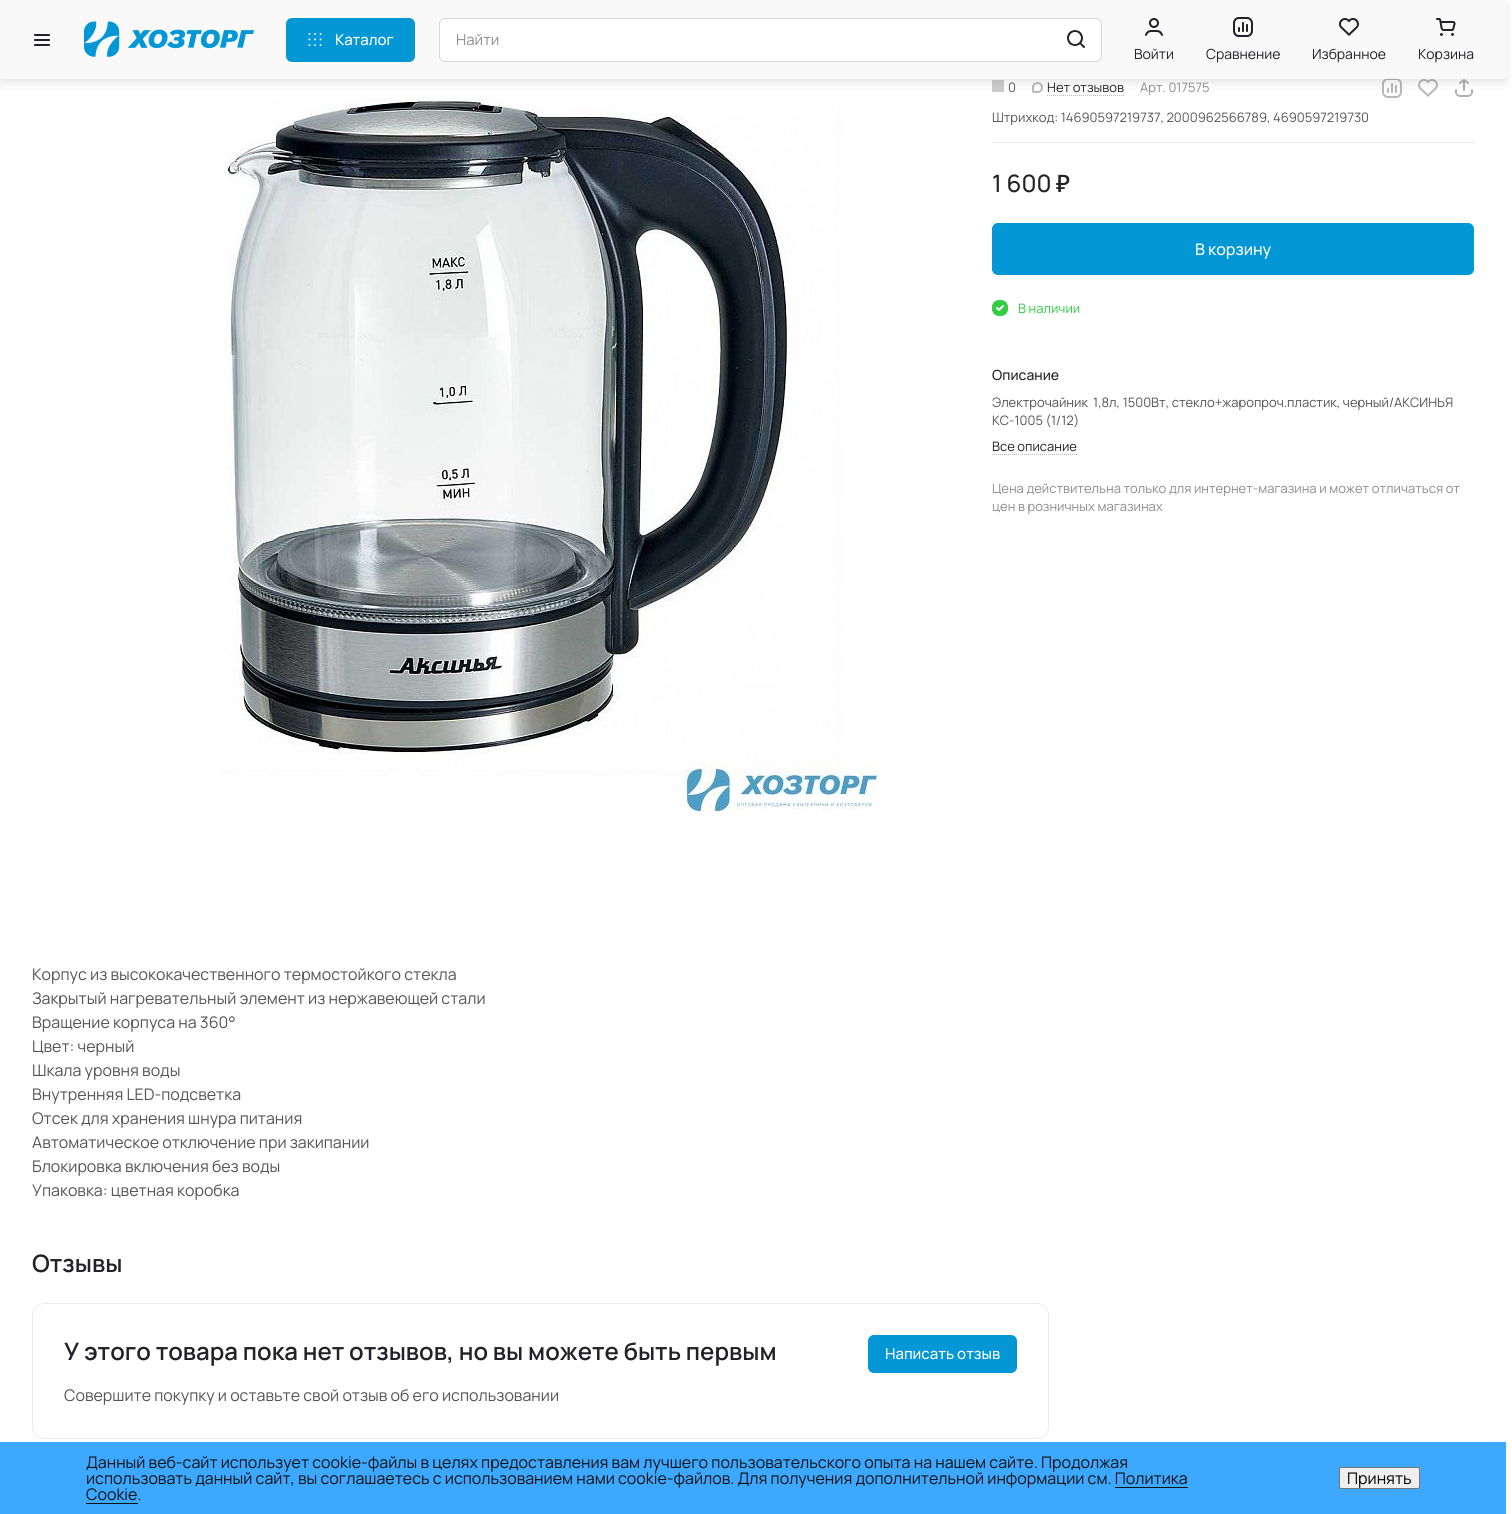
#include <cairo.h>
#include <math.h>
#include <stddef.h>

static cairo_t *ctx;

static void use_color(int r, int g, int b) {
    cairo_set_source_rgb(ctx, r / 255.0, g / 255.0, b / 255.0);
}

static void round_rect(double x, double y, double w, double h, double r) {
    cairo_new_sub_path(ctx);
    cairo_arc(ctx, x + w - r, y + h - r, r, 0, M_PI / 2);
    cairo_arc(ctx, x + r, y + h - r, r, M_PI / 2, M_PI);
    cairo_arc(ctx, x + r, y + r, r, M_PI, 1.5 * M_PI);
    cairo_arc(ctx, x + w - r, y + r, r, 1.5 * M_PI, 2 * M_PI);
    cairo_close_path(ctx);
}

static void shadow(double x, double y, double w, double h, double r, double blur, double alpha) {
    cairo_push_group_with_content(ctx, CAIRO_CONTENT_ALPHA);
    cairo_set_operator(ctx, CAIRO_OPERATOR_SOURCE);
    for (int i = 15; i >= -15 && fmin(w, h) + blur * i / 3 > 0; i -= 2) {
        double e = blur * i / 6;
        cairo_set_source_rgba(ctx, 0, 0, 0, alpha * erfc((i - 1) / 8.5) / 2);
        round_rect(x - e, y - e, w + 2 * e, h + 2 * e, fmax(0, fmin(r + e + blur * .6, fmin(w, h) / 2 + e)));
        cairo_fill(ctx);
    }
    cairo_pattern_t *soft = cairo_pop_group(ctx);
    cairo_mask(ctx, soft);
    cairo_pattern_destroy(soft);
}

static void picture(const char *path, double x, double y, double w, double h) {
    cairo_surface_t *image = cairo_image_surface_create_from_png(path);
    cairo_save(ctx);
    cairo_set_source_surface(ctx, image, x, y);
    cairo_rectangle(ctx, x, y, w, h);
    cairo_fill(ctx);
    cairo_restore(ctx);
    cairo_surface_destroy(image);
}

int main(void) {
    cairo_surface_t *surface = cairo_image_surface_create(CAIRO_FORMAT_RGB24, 1512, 1514);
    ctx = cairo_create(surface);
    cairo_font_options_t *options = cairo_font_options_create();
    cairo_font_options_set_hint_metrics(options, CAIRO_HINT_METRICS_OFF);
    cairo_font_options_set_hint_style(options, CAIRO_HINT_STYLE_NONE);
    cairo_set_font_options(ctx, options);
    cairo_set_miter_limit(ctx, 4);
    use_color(255, 255, 255);
    cairo_paint(ctx);
    picture("img11.png", 1382, 78, 20, 20);
    cairo_set_source_rgba(ctx, 0.969, 0.969, 0.969, 0.8);
    cairo_rectangle(ctx, 0, 0, 1506, 79);
    cairo_fill(ctx);
    picture("img9.png", 220, 98, 664, 728);
    use_color(204, 204, 204);
    cairo_rectangle(ctx, 992, 80, 12, 12);
    cairo_fill(ctx);
    picture("img10.png", 1032, 82, 11, 11);
    cairo_new_path(ctx);
    cairo_move_to(ctx, 1047, 95.5);
    cairo_line_to(ctx, 1124, 95.5);
    use_color(184, 184, 186);
    cairo_set_line_width(ctx, 1);
    cairo_set_dash(ctx, (double[]){1, 1}, 2, 0);
    cairo_stroke(ctx);
    picture("img12.png", 1418, 79, 20, 18);
    picture("img13.png", 1455, 79, 18, 18);
    cairo_save(ctx);
    cairo_set_fill_rule(ctx, CAIRO_FILL_RULE_EVEN_ODD);
    cairo_new_path(ctx);
    cairo_move_to(ctx, 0, 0);
    cairo_line_to(ctx, 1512, 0);
    cairo_line_to(ctx, 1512, 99);
    cairo_line_to(ctx, 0, 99);
    cairo_close_path(ctx);
    cairo_move_to(ctx, 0, 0);
    cairo_line_to(ctx, 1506, 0);
    cairo_line_to(ctx, 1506, 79);
    cairo_line_to(ctx, 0, 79);
    cairo_close_path(ctx);
    cairo_clip(ctx);
    use_color(0, 0, 0);
    shadow(0, 4, 1506, 79, 0, 5, 0.1);
    cairo_restore(ctx);
    picture("img1.png", 34, 34, 16, 12);
    picture("img2.png", 84, 21, 170, 36);
    use_color(3, 151, 214);
    round_rect(286.5, 18.5, 128, 43, 5.5);
    cairo_fill_preserve(ctx);
    cairo_set_dash(ctx, NULL, 0, 0);
    cairo_stroke(ctx);
    picture("img3.png", 308, 33, 14, 13);
    cairo_select_font_face(ctx, "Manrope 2 ExtraLight", CAIRO_FONT_SLANT_NORMAL, CAIRO_FONT_WEIGHT_NORMAL);
    cairo_set_font_size(ctx, 15);
    use_color(255, 255, 255);
    cairo_move_to(ctx, 335, 45);
    cairo_show_text(ctx, "Каталог");
    round_rect(439.5, 18.5, 662, 43, 5.5);
    cairo_fill_preserve(ctx);
    use_color(215, 216, 218);
    cairo_stroke(ctx);
    cairo_select_font_face(ctx, "Manrope ExtraLight", CAIRO_FONT_SLANT_NORMAL, CAIRO_FONT_WEIGHT_NORMAL);
    use_color(141, 141, 141);
    cairo_move_to(ctx, 456, 45);
    cairo_show_text(ctx, "Найти");
    picture("img4.png", 1067, 30, 18, 18);
    picture("img5.png", 1145, 18, 18, 18);
    cairo_set_font_size(ctx, 14);
    use_color(34, 34, 40);
    cairo_move_to(ctx, 1134, 59);
    cairo_show_text(ctx, "Войти");
    picture("img6.png", 1233, 17, 20, 20);
    cairo_move_to(ctx, 1206, 59);
    cairo_show_text(ctx, "Сравнение");
    picture("img7.png", 1339, 18, 20, 18);
    cairo_move_to(ctx, 1312, 59);
    cairo_show_text(ctx, "Избранное");
    picture("img8.png", 1436, 18, 20, 18);
    cairo_move_to(ctx, 1418, 59);
    cairo_show_text(ctx, "Корзина");
    cairo_set_font_size(ctx, 13);
    use_color(85, 85, 88);
    cairo_move_to(ctx, 1008, 92);
    cairo_show_text(ctx, "0");
    use_color(34, 34, 40);
    cairo_move_to(ctx, 1047, 92);
    cairo_show_text(ctx, "Нет отзывов");
    use_color(141, 141, 141);
    cairo_move_to(ctx, 1140, 92);
    cairo_show_text(ctx, "Арт. 017575");
    use_color(85, 85, 88);
    cairo_move_to(ctx, 992, 122);
    cairo_show_text(ctx, "Штрихкод: 14690597219737, 2000962566789, 4690597219730");
    use_color(235, 236, 239);
    cairo_rectangle(ctx, 992, 142, 482, 1);
    cairo_fill(ctx);
    cairo_select_font_face(ctx, "Manrope 2 ExtraLight", CAIRO_FONT_SLANT_NORMAL, CAIRO_FONT_WEIGHT_NORMAL);
    cairo_set_font_size(ctx, 24);
    use_color(34, 34, 40);
    cairo_move_to(ctx, 992, 192);
    cairo_show_text(ctx, "1 600");
    cairo_select_font_face(ctx, "Noto Sans Medium", CAIRO_FONT_SLANT_NORMAL, CAIRO_FONT_WEIGHT_NORMAL);
    cairo_move_to(ctx, 1056, 192);
    cairo_show_text(ctx, "₽");
    use_color(3, 151, 214);
    round_rect(992.5, 223.5, 481, 51, 5.5);
    cairo_fill_preserve(ctx);
    cairo_stroke(ctx);
    cairo_select_font_face(ctx, "Manrope 2 ExtraLight", CAIRO_FONT_SLANT_NORMAL, CAIRO_FONT_WEIGHT_NORMAL);
    cairo_set_font_size(ctx, 16);
    use_color(255, 255, 255);
    cairo_move_to(ctx, 1195, 255);
    cairo_show_text(ctx, "В корзину");
    picture("img14.png", 992, 300, 16, 16);
    cairo_select_font_face(ctx, "Manrope ExtraLight", CAIRO_FONT_SLANT_NORMAL, CAIRO_FONT_WEIGHT_NORMAL);
    cairo_set_font_size(ctx, 13);
    use_color(50, 203, 65);
    cairo_move_to(ctx, 1018, 313);
    cairo_show_text(ctx, "В наличии");
    cairo_select_font_face(ctx, "Manrope 2 ExtraLight", CAIRO_FONT_SLANT_NORMAL, CAIRO_FONT_WEIGHT_NORMAL);
    cairo_set_font_size(ctx, 14);
    use_color(34, 34, 40);
    cairo_move_to(ctx, 992, 380);
    cairo_show_text(ctx, "Описание");
    cairo_select_font_face(ctx, "Manrope ExtraLight", CAIRO_FONT_SLANT_NORMAL, CAIRO_FONT_WEIGHT_NORMAL);
    cairo_set_font_size(ctx, 13);
    use_color(85, 85, 88);
    cairo_move_to(ctx, 992, 407);
    cairo_show_text(ctx, "Электрочайник  1,8л, 1500Вт, стекло+жаропроч.пластик, черный/АКСИНЬЯ");
    cairo_move_to(ctx, 992, 425);
    cairo_show_text(ctx, "КС-1005 (1/12)");
    use_color(34, 34, 40);
    cairo_move_to(ctx, 992, 451);
    cairo_show_text(ctx, "Все описание");
    cairo_new_path(ctx);
    cairo_move_to(ctx, 992, 454.5);
    cairo_line_to(ctx, 1077, 454.5);
    use_color(184, 184, 186);
    cairo_set_dash(ctx, (double[]){1, 1}, 2, 0);
    cairo_stroke(ctx);
    use_color(141, 141, 141);
    cairo_move_to(ctx, 992, 493);
    cairo_show_text(ctx, "Цена действительна только для интернет-магазина и может отличаться от");
    cairo_move_to(ctx, 992, 511);
    cairo_show_text(ctx, "цен в розничных магазинах");
    cairo_set_font_size(ctx, 16);
    use_color(85, 85, 88);
    cairo_move_to(ctx, 32, 980);
    cairo_show_text(ctx, "Корпус из высококачественного термостойкого стекла");
    cairo_move_to(ctx, 32, 1004);
    cairo_show_text(ctx, "Закрытый нагревательный элемент из нержавеющей стали");
    cairo_move_to(ctx, 32, 1028);
    cairo_show_text(ctx, "Вращение корпуса на 360°");
    cairo_move_to(ctx, 32, 1052);
    cairo_show_text(ctx, "Цвет: черный");
    cairo_move_to(ctx, 32, 1076);
    cairo_show_text(ctx, "Шкала уровня воды");
    cairo_move_to(ctx, 32, 1100);
    cairo_show_text(ctx, "Внутренняя LED-подсветка");
    cairo_move_to(ctx, 32, 1124);
    cairo_show_text(ctx, "Отсек для хранения шнура питания");
    cairo_move_to(ctx, 32, 1148);
    cairo_show_text(ctx, "Автоматическое отключение при закипании");
    cairo_move_to(ctx, 32, 1172);
    cairo_show_text(ctx, "Блокировка включения без воды");
    cairo_move_to(ctx, 32, 1196);
    cairo_show_text(ctx, "Упаковка: цветная коробка");
    cairo_select_font_face(ctx, "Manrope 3 ExtraLight", CAIRO_FONT_SLANT_NORMAL, CAIRO_FONT_WEIGHT_NORMAL);
    cairo_set_font_size(ctx, 24);
    use_color(34, 34, 40);
    cairo_move_to(ctx, 32, 1272);
    cairo_show_text(ctx, "Отзывы");
    round_rect(32.5, 1303.5, 1016, 135, 11.5);
    use_color(235, 236, 239);
    cairo_set_dash(ctx, NULL, 0, 0);
    cairo_stroke(ctx);
    use_color(34, 34, 40);
    cairo_move_to(ctx, 64, 1360);
    cairo_show_text(ctx, "У этого товара пока нет отзывов, но вы можете быть первым");
    cairo_select_font_face(ctx, "Manrope ExtraLight", CAIRO_FONT_SLANT_NORMAL, CAIRO_FONT_WEIGHT_NORMAL);
    cairo_set_font_size(ctx, 16);
    use_color(85, 85, 88);
    cairo_move_to(ctx, 64, 1401);
    cairo_show_text(ctx, "Совершите покупку и оставьте свой отзыв об его использовании");
    use_color(3, 151, 214);
    round_rect(868.5, 1335.5, 148, 37, 5.5);
    cairo_fill_preserve(ctx);
    cairo_stroke(ctx);
    cairo_select_font_face(ctx, "Manrope 2 ExtraLight", CAIRO_FONT_SLANT_NORMAL, CAIRO_FONT_WEIGHT_NORMAL);
    cairo_set_font_size(ctx, 15);
    use_color(255, 255, 255);
    cairo_move_to(ctx, 885, 1359);
    cairo_show_text(ctx, "Написать отзыв");
    use_color(61, 168, 255);
    cairo_rectangle(ctx, 0, 1442, 1506, 72);
    cairo_fill(ctx);
    cairo_select_font_face(ctx, "Manrope ExtraLight", CAIRO_FONT_SLANT_NORMAL, CAIRO_FONT_WEIGHT_NORMAL);
    cairo_set_font_size(ctx, 16);
    use_color(17, 17, 17);
    cairo_move_to(ctx, 86, 1468);
    cairo_show_text(ctx, "Данный веб-сайт использует cookie-файлы в целях предоставления вам лучшего пользовательского опыта на нашем сайте. Продолжая");
    cairo_move_to(ctx, 86, 1484);
    cairo_show_text(ctx, "использовать данный сайт, вы соглашаетесь с использованием нами cookie-файлов. Для получения дополнительной информации см. Политика");
    cairo_move_to(ctx, 86, 1500);
    cairo_show_text(ctx, "Cookie.");
    cairo_rectangle(ctx, 1115, 1487, 73, 1);
    cairo_fill(ctx);
    cairo_rectangle(ctx, 86, 1503, 52, 1);
    cairo_fill(ctx);
    use_color(239, 239, 239);
    round_rect(1339.5, 1467.5, 80, 21, 1.5);
    cairo_fill_preserve(ctx);
    use_color(118, 118, 118);
    cairo_stroke(ctx);
    use_color(0, 0, 0);
    cairo_move_to(ctx, 1347, 1484);
    cairo_show_text(ctx, "Принять");
    cairo_surface_write_to_png(surface, "result.png");
    cairo_font_options_destroy(options);
    cairo_destroy(ctx);
    cairo_surface_destroy(surface);
    return 0;
}
